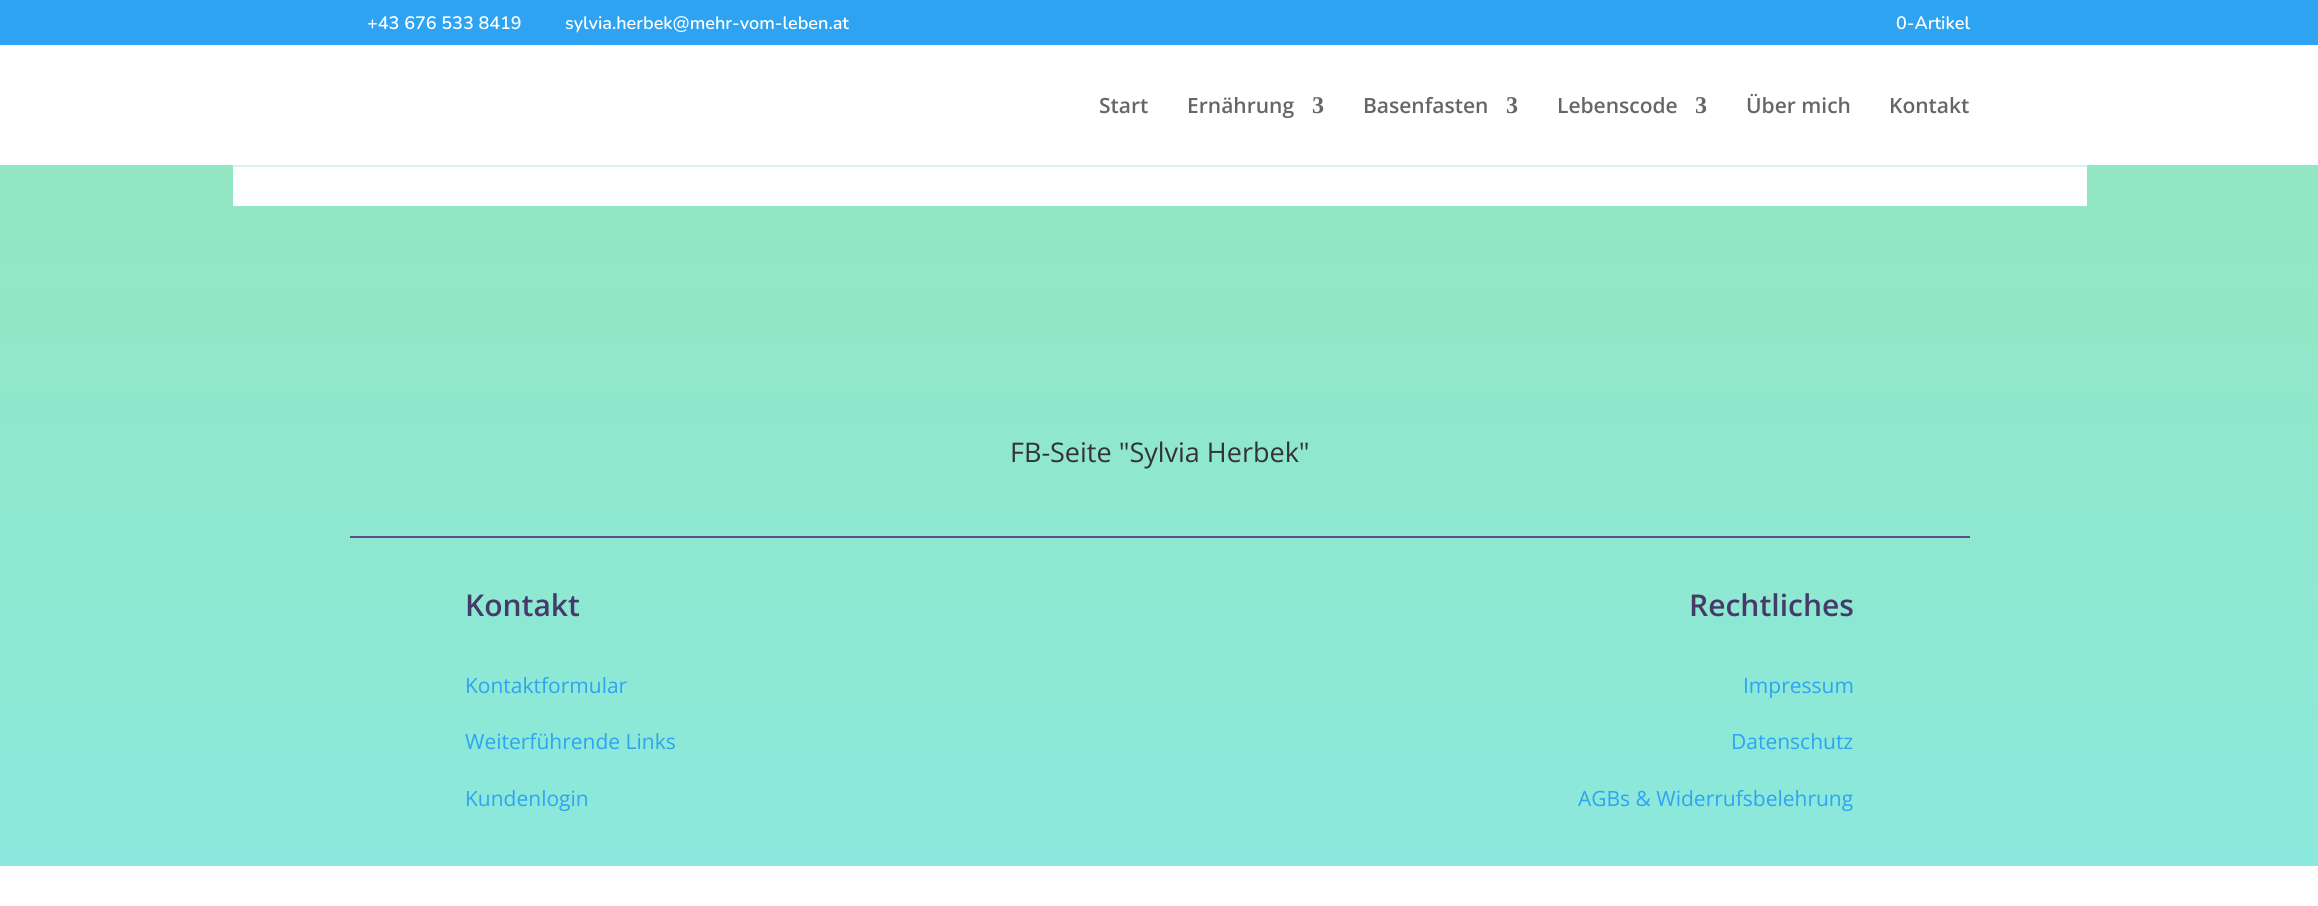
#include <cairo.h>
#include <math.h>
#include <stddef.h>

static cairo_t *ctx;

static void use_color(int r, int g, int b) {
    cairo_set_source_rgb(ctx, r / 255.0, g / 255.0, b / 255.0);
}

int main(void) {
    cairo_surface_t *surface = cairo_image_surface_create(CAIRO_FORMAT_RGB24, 2318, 906);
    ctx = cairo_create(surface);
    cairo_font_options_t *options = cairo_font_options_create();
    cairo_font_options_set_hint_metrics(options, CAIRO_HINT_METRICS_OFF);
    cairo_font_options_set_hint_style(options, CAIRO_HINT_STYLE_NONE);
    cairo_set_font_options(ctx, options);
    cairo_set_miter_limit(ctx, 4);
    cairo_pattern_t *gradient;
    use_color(255, 255, 255);
    cairo_paint(ctx);
    use_color(46, 163, 242);
    cairo_rectangle(ctx, 0, 0, 2318, 45);
    cairo_fill(ctx);
    cairo_select_font_face(ctx, "Nunito SemiBold", CAIRO_FONT_SLANT_NORMAL, CAIRO_FONT_WEIGHT_NORMAL);
    cairo_set_font_size(ctx, 18);
    use_color(255, 255, 255);
    cairo_move_to(ctx, 367, 29);
    cairo_show_text(ctx, "+43 676 533 8419");
    cairo_move_to(ctx, 565, 29);
    cairo_show_text(ctx, "sylvia.herbek@mehr-vom-leben.at");
    cairo_move_to(ctx, 1896, 29);
    cairo_show_text(ctx, "0-Artikel");
    cairo_select_font_face(ctx, "Open Sans SemiBold", CAIRO_FONT_SLANT_NORMAL, CAIRO_FONT_WEIGHT_NORMAL);
    cairo_set_font_size(ctx, 21);
    use_color(102, 102, 102);
    cairo_move_to(ctx, 1099, 113);
    cairo_show_text(ctx, "Start");
    cairo_move_to(ctx, 1187, 113);
    cairo_show_text(ctx, "Ernährung");
    cairo_select_font_face(ctx, "Liberation Serif", CAIRO_FONT_SLANT_NORMAL, CAIRO_FONT_WEIGHT_BOLD);
    cairo_set_font_size(ctx, 24);
    cairo_move_to(ctx, 1312, 113);
    cairo_show_text(ctx, "3");
    cairo_select_font_face(ctx, "Open Sans SemiBold", CAIRO_FONT_SLANT_NORMAL, CAIRO_FONT_WEIGHT_NORMAL);
    cairo_set_font_size(ctx, 21);
    cairo_move_to(ctx, 1363, 113);
    cairo_show_text(ctx, "Basenfasten");
    cairo_select_font_face(ctx, "Liberation Serif", CAIRO_FONT_SLANT_NORMAL, CAIRO_FONT_WEIGHT_BOLD);
    cairo_set_font_size(ctx, 24);
    cairo_move_to(ctx, 1506, 113);
    cairo_show_text(ctx, "3");
    cairo_select_font_face(ctx, "Open Sans SemiBold", CAIRO_FONT_SLANT_NORMAL, CAIRO_FONT_WEIGHT_NORMAL);
    cairo_set_font_size(ctx, 21);
    cairo_move_to(ctx, 1557, 113);
    cairo_show_text(ctx, "Lebenscode");
    cairo_select_font_face(ctx, "Liberation Serif", CAIRO_FONT_SLANT_NORMAL, CAIRO_FONT_WEIGHT_BOLD);
    cairo_set_font_size(ctx, 24);
    cairo_move_to(ctx, 1695, 113);
    cairo_show_text(ctx, "3");
    cairo_select_font_face(ctx, "Open Sans SemiBold", CAIRO_FONT_SLANT_NORMAL, CAIRO_FONT_WEIGHT_NORMAL);
    cairo_set_font_size(ctx, 21);
    cairo_move_to(ctx, 1746, 113);
    cairo_show_text(ctx, "Über mich");
    cairo_move_to(ctx, 1889, 113);
    cairo_show_text(ctx, "Kontakt");
    gradient = cairo_pattern_create_linear(1159, -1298, 1160, 866);
    cairo_pattern_add_color_stop_rgba(gradient, 0, 0.627, 0.898, 0.545, 1);
    cairo_pattern_add_color_stop_rgba(gradient, 1, 0.545, 0.91, 0.863, 1);
    cairo_set_source(ctx, gradient);
    cairo_pattern_destroy(gradient);
    cairo_rectangle(ctx, 0, 167, 2318, 699);
    cairo_fill(ctx);
    gradient = cairo_pattern_create_linear(1159, -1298, 1160, 866);
    cairo_pattern_add_color_stop_rgba(gradient, 0, 0.596, 0.902, 0.667, 1);
    cairo_pattern_add_color_stop_rgba(gradient, 1, 0.545, 0.91, 0.863, 1);
    cairo_set_source(ctx, gradient);
    cairo_pattern_destroy(gradient);
    cairo_rectangle(ctx, 0, 165, 2318, 2);
    cairo_fill(ctx);
    use_color(255, 255, 255);
    cairo_rectangle(ctx, 233, 167, 1854, 39);
    cairo_fill(ctx);
    use_color(211, 246, 242);
    cairo_rectangle(ctx, 233, 165, 1854, 2);
    cairo_fill(ctx);
    use_color(92, 76, 138);
    cairo_rectangle(ctx, 350, 536, 1620, 2);
    cairo_fill(ctx);
    cairo_select_font_face(ctx, "Open Sans", CAIRO_FONT_SLANT_NORMAL, CAIRO_FONT_WEIGHT_NORMAL);
    cairo_set_font_size(ctx, 27);
    use_color(51, 51, 51);
    cairo_move_to(ctx, 1010, 462);
    cairo_show_text(ctx, "FB-Seite \"Sylvia Herbek\"");
    cairo_select_font_face(ctx, "Open Sans SemiBold", CAIRO_FONT_SLANT_NORMAL, CAIRO_FONT_WEIGHT_NORMAL);
    cairo_set_font_size(ctx, 30);
    use_color(70, 58, 105);
    cairo_move_to(ctx, 465, 616);
    cairo_show_text(ctx, "Kontakt");
    cairo_select_font_face(ctx, "Open Sans", CAIRO_FONT_SLANT_NORMAL, CAIRO_FONT_WEIGHT_NORMAL);
    cairo_set_font_size(ctx, 21);
    use_color(46, 163, 242);
    cairo_move_to(ctx, 465, 693);
    cairo_show_text(ctx, "Kontaktformular");
    cairo_move_to(ctx, 465, 749);
    cairo_show_text(ctx, "Weiterführende Links");
    cairo_move_to(ctx, 465, 806);
    cairo_show_text(ctx, "Kundenlogin");
    cairo_select_font_face(ctx, "Open Sans SemiBold", CAIRO_FONT_SLANT_NORMAL, CAIRO_FONT_WEIGHT_NORMAL);
    cairo_set_font_size(ctx, 30);
    use_color(70, 58, 105);
    cairo_move_to(ctx, 1689, 616);
    cairo_show_text(ctx, "Rechtliches");
    cairo_select_font_face(ctx, "Open Sans", CAIRO_FONT_SLANT_NORMAL, CAIRO_FONT_WEIGHT_NORMAL);
    cairo_set_font_size(ctx, 21);
    use_color(46, 163, 242);
    cairo_move_to(ctx, 1743, 693);
    cairo_show_text(ctx, "Impressum");
    cairo_move_to(ctx, 1731, 749);
    cairo_show_text(ctx, "Datenschutz");
    cairo_move_to(ctx, 1578, 806);
    cairo_show_text(ctx, "AGBs & Widerrufsbelehrung");
    cairo_surface_write_to_png(surface, "result.png");
    cairo_font_options_destroy(options);
    cairo_destroy(ctx);
    cairo_surface_destroy(surface);
    return 0;
}
